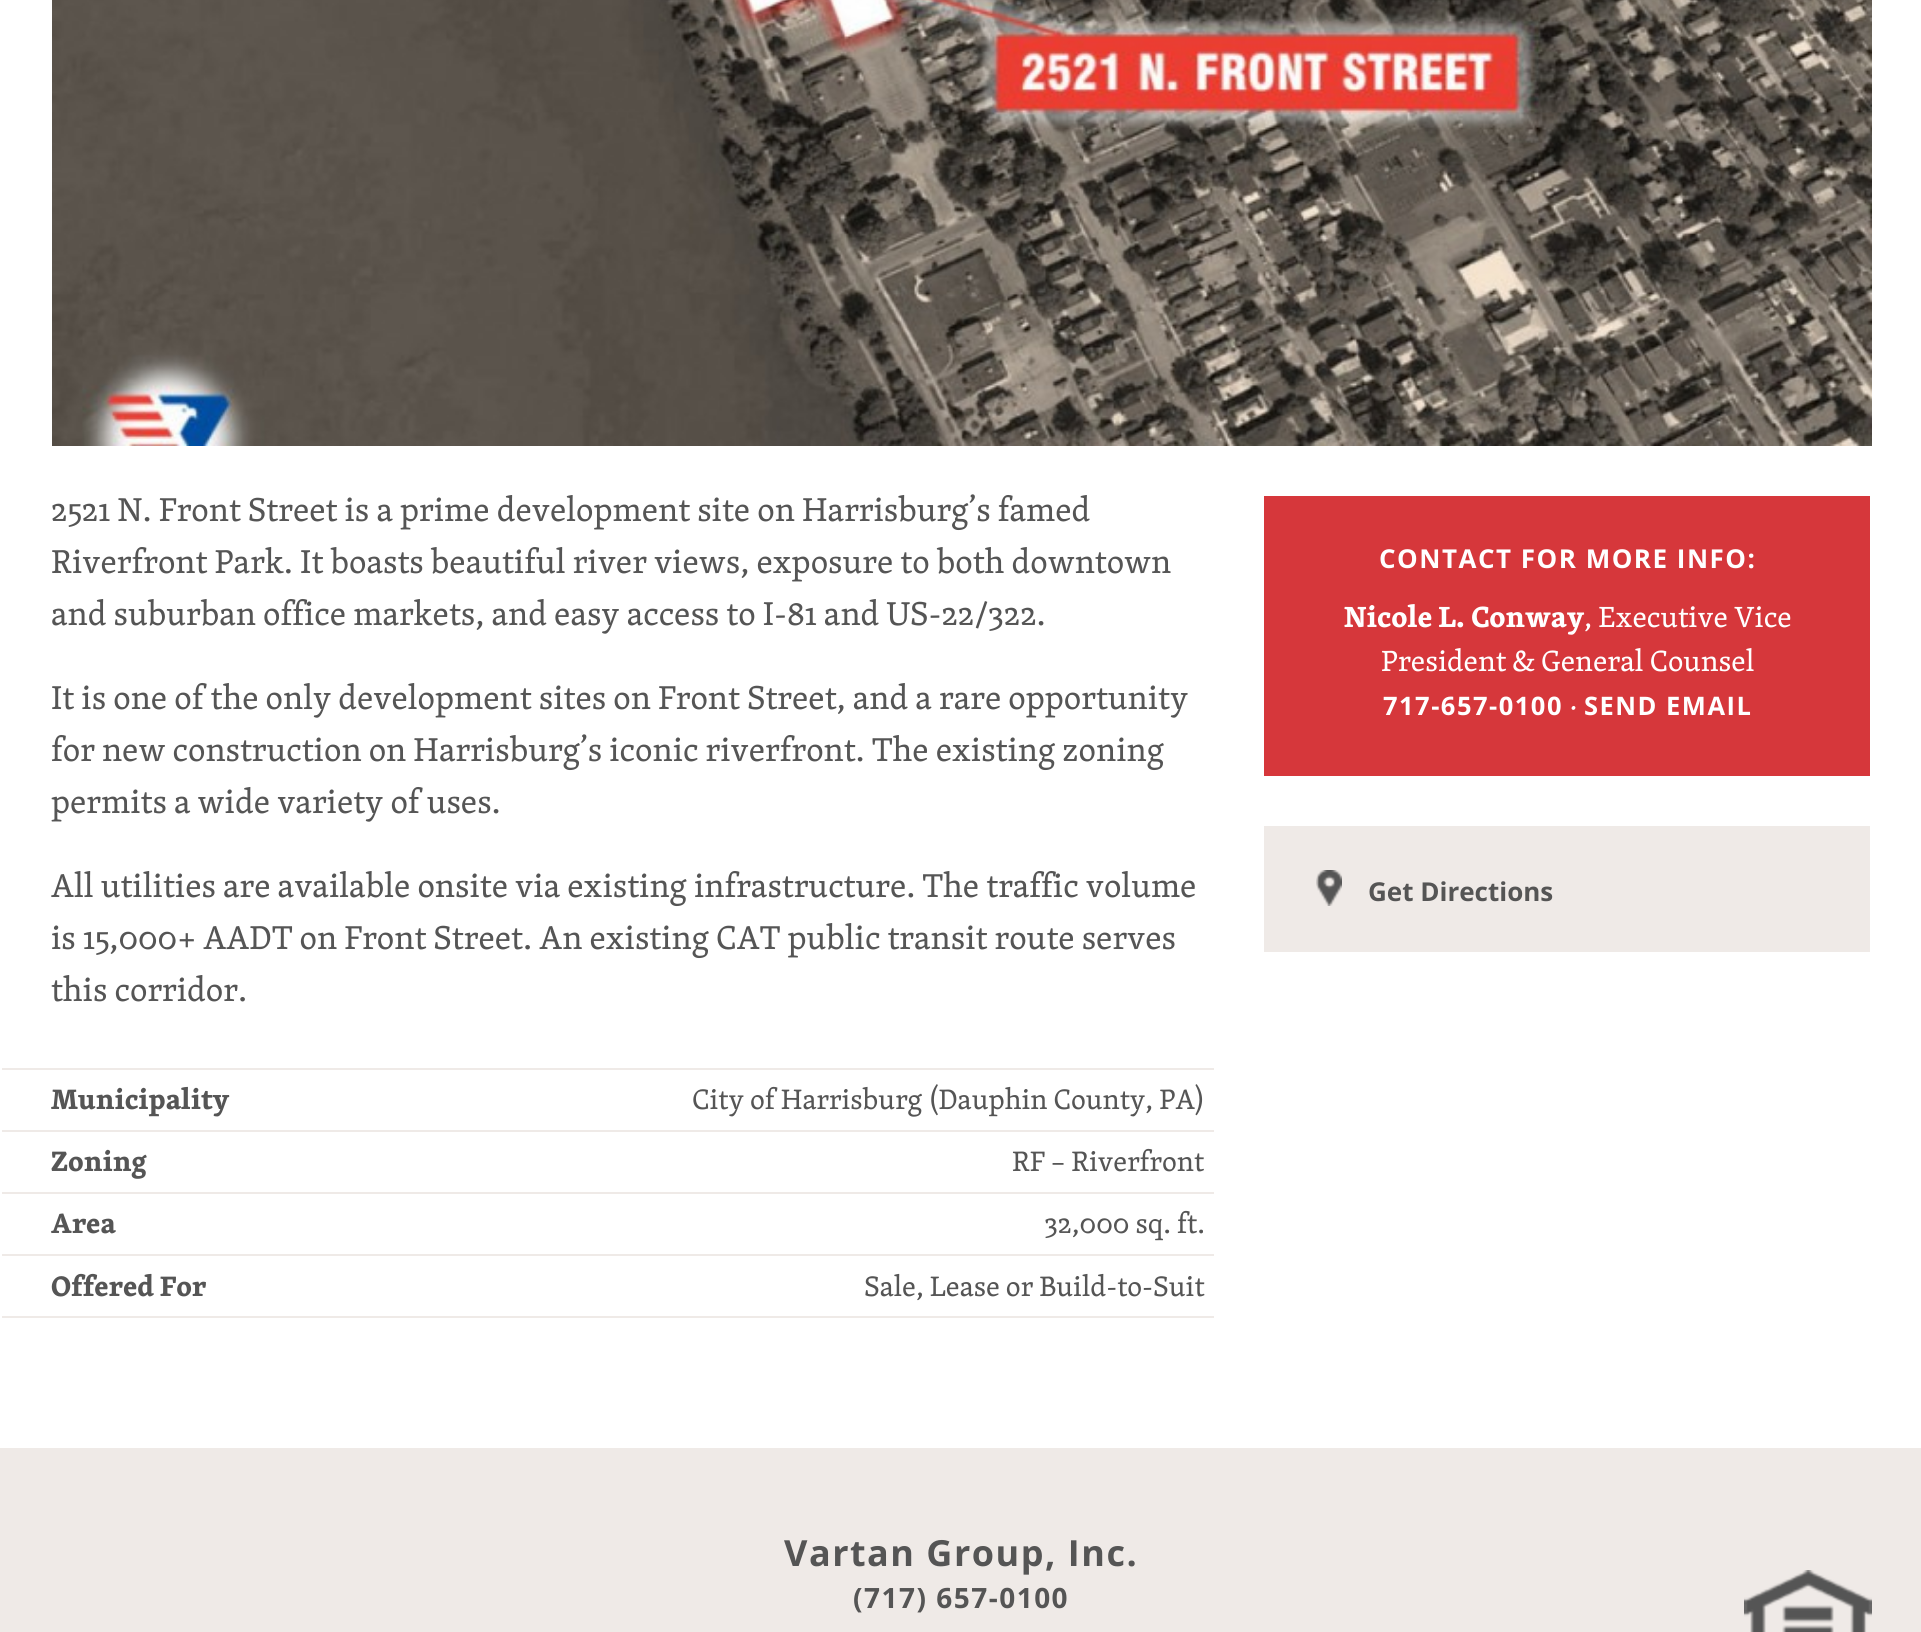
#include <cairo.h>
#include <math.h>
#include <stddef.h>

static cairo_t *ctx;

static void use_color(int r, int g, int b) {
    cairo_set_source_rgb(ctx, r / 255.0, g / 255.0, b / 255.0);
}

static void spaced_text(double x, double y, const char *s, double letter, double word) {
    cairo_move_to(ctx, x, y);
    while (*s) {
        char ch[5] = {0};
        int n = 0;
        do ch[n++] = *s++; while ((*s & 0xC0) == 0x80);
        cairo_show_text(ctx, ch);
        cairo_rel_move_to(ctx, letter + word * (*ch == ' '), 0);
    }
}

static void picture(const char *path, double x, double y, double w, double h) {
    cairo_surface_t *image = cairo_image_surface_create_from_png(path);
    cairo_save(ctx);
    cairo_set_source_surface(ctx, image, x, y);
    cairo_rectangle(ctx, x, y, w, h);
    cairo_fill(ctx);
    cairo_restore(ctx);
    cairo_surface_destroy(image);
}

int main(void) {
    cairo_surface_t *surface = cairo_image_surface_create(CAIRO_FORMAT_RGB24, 1921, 1632);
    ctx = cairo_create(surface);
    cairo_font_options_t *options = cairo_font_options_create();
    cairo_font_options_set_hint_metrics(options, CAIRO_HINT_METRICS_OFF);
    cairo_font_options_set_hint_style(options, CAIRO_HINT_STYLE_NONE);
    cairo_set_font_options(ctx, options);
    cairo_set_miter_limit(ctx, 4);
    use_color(255, 255, 255);
    cairo_paint(ctx);
    picture("img1.png", 52, 0, 1820, 446);
    cairo_select_font_face(ctx, "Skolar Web", CAIRO_FONT_SLANT_NORMAL, CAIRO_FONT_WEIGHT_NORMAL);
    cairo_set_font_size(ctx, 34);
    use_color(85, 85, 85);
    cairo_move_to(ctx, 51, 521);
    cairo_show_text(ctx, "2521 N. Front Street is a prime development site on Harrisburg’s famed");
    cairo_move_to(ctx, 51, 573);
    cairo_show_text(ctx, "Riverfront Park. It boasts beautiful river views, exposure to both downtown");
    cairo_move_to(ctx, 51, 625);
    cairo_show_text(ctx, "and suburban office markets, and easy access to I-81 and US-22/322.");
    cairo_move_to(ctx, 51, 709);
    cairo_show_text(ctx, "It is one of the only development sites on Front Street, and a rare opportunity");
    cairo_move_to(ctx, 51, 761);
    cairo_show_text(ctx, "for new construction on Harrisburg’s iconic riverfront. The existing zoning");
    cairo_move_to(ctx, 51, 813);
    cairo_show_text(ctx, "permits a wide variety of uses.");
    cairo_move_to(ctx, 51, 897);
    cairo_show_text(ctx, "All utilities are available onsite via existing infrastructure. The traffic volume");
    cairo_move_to(ctx, 51, 949);
    cairo_show_text(ctx, "is 15,000+ AADT on Front Street. An existing CAT public transit route serves");
    cairo_move_to(ctx, 51, 1001);
    cairo_show_text(ctx, "this corridor.");
    use_color(239, 234, 231);
    cairo_rectangle(ctx, 2, 1316, 1212, 2);
    cairo_fill(ctx);
    cairo_rectangle(ctx, 2, 1068, 1212, 2);
    cairo_fill(ctx);
    cairo_select_font_face(ctx, "Skolar Web", CAIRO_FONT_SLANT_NORMAL, CAIRO_FONT_WEIGHT_BOLD);
    cairo_set_font_size(ctx, 28.9);
    use_color(85, 85, 85);
    cairo_move_to(ctx, 51, 1109);
    cairo_show_text(ctx, "Municipality");
    cairo_select_font_face(ctx, "Skolar Web", CAIRO_FONT_SLANT_NORMAL, CAIRO_FONT_WEIGHT_NORMAL);
    cairo_move_to(ctx, 692, 1109);
    cairo_show_text(ctx, "City of Harrisburg (Dauphin County, PA)");
    use_color(239, 234, 231);
    cairo_rectangle(ctx, 2, 1130, 1212, 2);
    cairo_fill(ctx);
    cairo_select_font_face(ctx, "Skolar Web", CAIRO_FONT_SLANT_NORMAL, CAIRO_FONT_WEIGHT_BOLD);
    use_color(85, 85, 85);
    cairo_move_to(ctx, 51, 1171);
    cairo_show_text(ctx, "Zoning");
    cairo_select_font_face(ctx, "Skolar Web", CAIRO_FONT_SLANT_NORMAL, CAIRO_FONT_WEIGHT_NORMAL);
    cairo_move_to(ctx, 1012, 1171);
    cairo_show_text(ctx, "RF – Riverfront");
    use_color(239, 234, 231);
    cairo_rectangle(ctx, 2, 1192, 1212, 2);
    cairo_fill(ctx);
    cairo_select_font_face(ctx, "Skolar Web", CAIRO_FONT_SLANT_NORMAL, CAIRO_FONT_WEIGHT_BOLD);
    use_color(85, 85, 85);
    cairo_move_to(ctx, 51, 1233);
    cairo_show_text(ctx, "Area");
    cairo_select_font_face(ctx, "Skolar Web", CAIRO_FONT_SLANT_NORMAL, CAIRO_FONT_WEIGHT_NORMAL);
    cairo_move_to(ctx, 1045, 1233);
    cairo_show_text(ctx, "32,000 sq. ft.");
    use_color(239, 234, 231);
    cairo_rectangle(ctx, 2, 1254, 1212, 2);
    cairo_fill(ctx);
    cairo_select_font_face(ctx, "Skolar Web", CAIRO_FONT_SLANT_NORMAL, CAIRO_FONT_WEIGHT_BOLD);
    use_color(85, 85, 85);
    cairo_move_to(ctx, 51, 1296);
    cairo_show_text(ctx, "Offered For");
    cairo_select_font_face(ctx, "Skolar Web", CAIRO_FONT_SLANT_NORMAL, CAIRO_FONT_WEIGHT_NORMAL);
    cairo_move_to(ctx, 864, 1296);
    cairo_show_text(ctx, "Sale, Lease or Build-to-Suit");
    use_color(214, 55, 59);
    cairo_rectangle(ctx, 1264, 496, 606, 280);
    cairo_fill(ctx);
    cairo_select_font_face(ctx, "Open Sans", CAIRO_FONT_SLANT_NORMAL, CAIRO_FONT_WEIGHT_BOLD);
    cairo_set_font_size(ctx, 26);
    use_color(255, 255, 255);
    spaced_text(1379, 568, "CONTACT FOR MORE INFO:", 1.5, 0);
    cairo_select_font_face(ctx, "Skolar Web", CAIRO_FONT_SLANT_NORMAL, CAIRO_FONT_WEIGHT_BOLD);
    cairo_set_font_size(ctx, 30);
    cairo_move_to(ctx, 1344, 627);
    cairo_show_text(ctx, "Nicole L. Conway");
    cairo_select_font_face(ctx, "Skolar Web", CAIRO_FONT_SLANT_NORMAL, CAIRO_FONT_WEIGHT_NORMAL);
    cairo_move_to(ctx, 1584, 627);
    cairo_show_text(ctx, ", Executive Vice");
    cairo_move_to(ctx, 1381, 671);
    cairo_show_text(ctx, "President & General Counsel");
    cairo_select_font_face(ctx, "Open Sans", CAIRO_FONT_SLANT_NORMAL, CAIRO_FONT_WEIGHT_BOLD);
    cairo_set_font_size(ctx, 25.5);
    spaced_text(1383, 715, "717-657-0100", 1.5, 0);
    cairo_select_font_face(ctx, "Skolar Web", CAIRO_FONT_SLANT_NORMAL, CAIRO_FONT_WEIGHT_NORMAL);
    cairo_set_font_size(ctx, 30);
    cairo_move_to(ctx, 1569, 715);
    cairo_show_text(ctx, "·");
    cairo_select_font_face(ctx, "Open Sans", CAIRO_FONT_SLANT_NORMAL, CAIRO_FONT_WEIGHT_BOLD);
    cairo_set_font_size(ctx, 25.5);
    spaced_text(1584, 715, "SEND EMAIL", 1.5, 0);
    use_color(239, 234, 231);
    cairo_rectangle(ctx, 1264, 826, 606, 126);
    cairo_fill(ctx);
    picture("img2.png", 1316, 870, 26, 36);
    cairo_set_font_size(ctx, 26);
    use_color(85, 85, 85);
    cairo_move_to(ctx, 1368, 901);
    cairo_show_text(ctx, "Get Directions");
    use_color(239, 234, 231);
    cairo_rectangle(ctx, 0, 1448, 1921, 184);
    cairo_fill(ctx);
    cairo_set_font_size(ctx, 36);
    use_color(85, 85, 85);
    spaced_text(784, 1566, "Vartan Group, Inc.", 1.5, 0);
    cairo_set_font_size(ctx, 28);
    spaced_text(853, 1608, "(717) 657-0100", 1.5, 0);
    picture("img3.png", 1744, 1570, 128, 62);
    cairo_surface_write_to_png(surface, "result.png");
    cairo_font_options_destroy(options);
    cairo_destroy(ctx);
    cairo_surface_destroy(surface);
    return 0;
}
